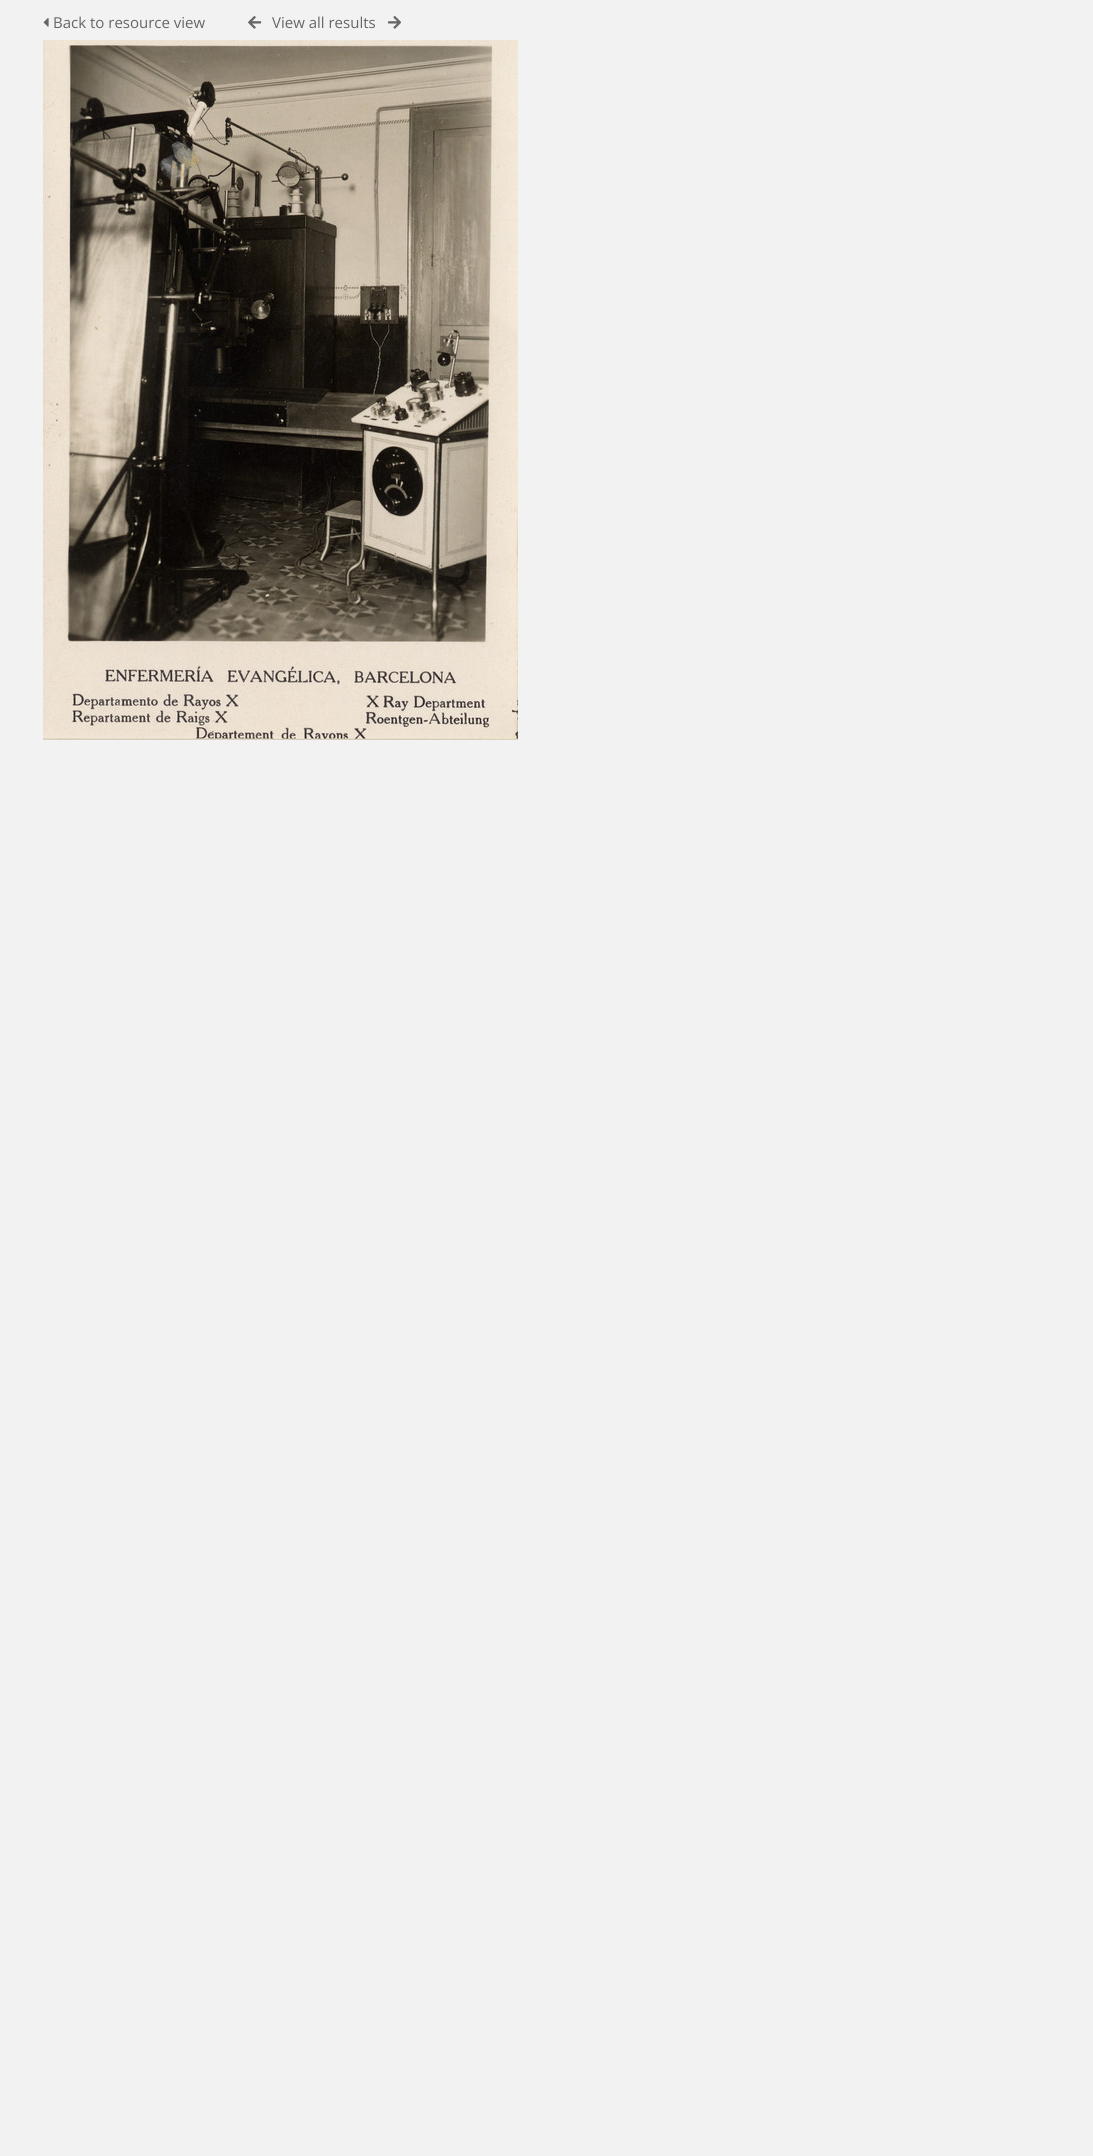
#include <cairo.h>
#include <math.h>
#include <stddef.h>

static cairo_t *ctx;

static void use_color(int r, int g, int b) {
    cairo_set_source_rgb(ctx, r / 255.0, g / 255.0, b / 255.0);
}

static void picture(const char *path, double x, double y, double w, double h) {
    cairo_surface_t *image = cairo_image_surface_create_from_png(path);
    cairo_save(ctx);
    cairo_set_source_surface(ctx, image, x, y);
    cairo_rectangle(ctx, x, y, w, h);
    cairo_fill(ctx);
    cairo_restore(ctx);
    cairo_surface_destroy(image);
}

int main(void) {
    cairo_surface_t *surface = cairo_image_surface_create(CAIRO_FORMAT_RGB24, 1093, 2156);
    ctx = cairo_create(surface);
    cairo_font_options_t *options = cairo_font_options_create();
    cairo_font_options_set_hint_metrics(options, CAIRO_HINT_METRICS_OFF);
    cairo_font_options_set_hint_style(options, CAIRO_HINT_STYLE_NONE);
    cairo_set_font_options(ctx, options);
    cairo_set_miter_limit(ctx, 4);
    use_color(242, 242, 242);
    cairo_paint(ctx);
    picture("img1.png", 43, 18, 6, 9);
    cairo_select_font_face(ctx, "Open Sans", CAIRO_FONT_SLANT_NORMAL, CAIRO_FONT_WEIGHT_NORMAL);
    cairo_set_font_size(ctx, 15);
    use_color(102, 102, 102);
    cairo_move_to(ctx, 53, 28);
    cairo_show_text(ctx, "Back to resource view");
    picture("img2.png", 248, 16, 14, 13);
    cairo_move_to(ctx, 272, 28);
    cairo_show_text(ctx, "View all results");
    picture("img3.png", 388, 16, 14, 13);
    picture("img4.png", 43, 40, 475, 700);
    cairo_surface_write_to_png(surface, "result.png");
    cairo_font_options_destroy(options);
    cairo_destroy(ctx);
    cairo_surface_destroy(surface);
    return 0;
}
